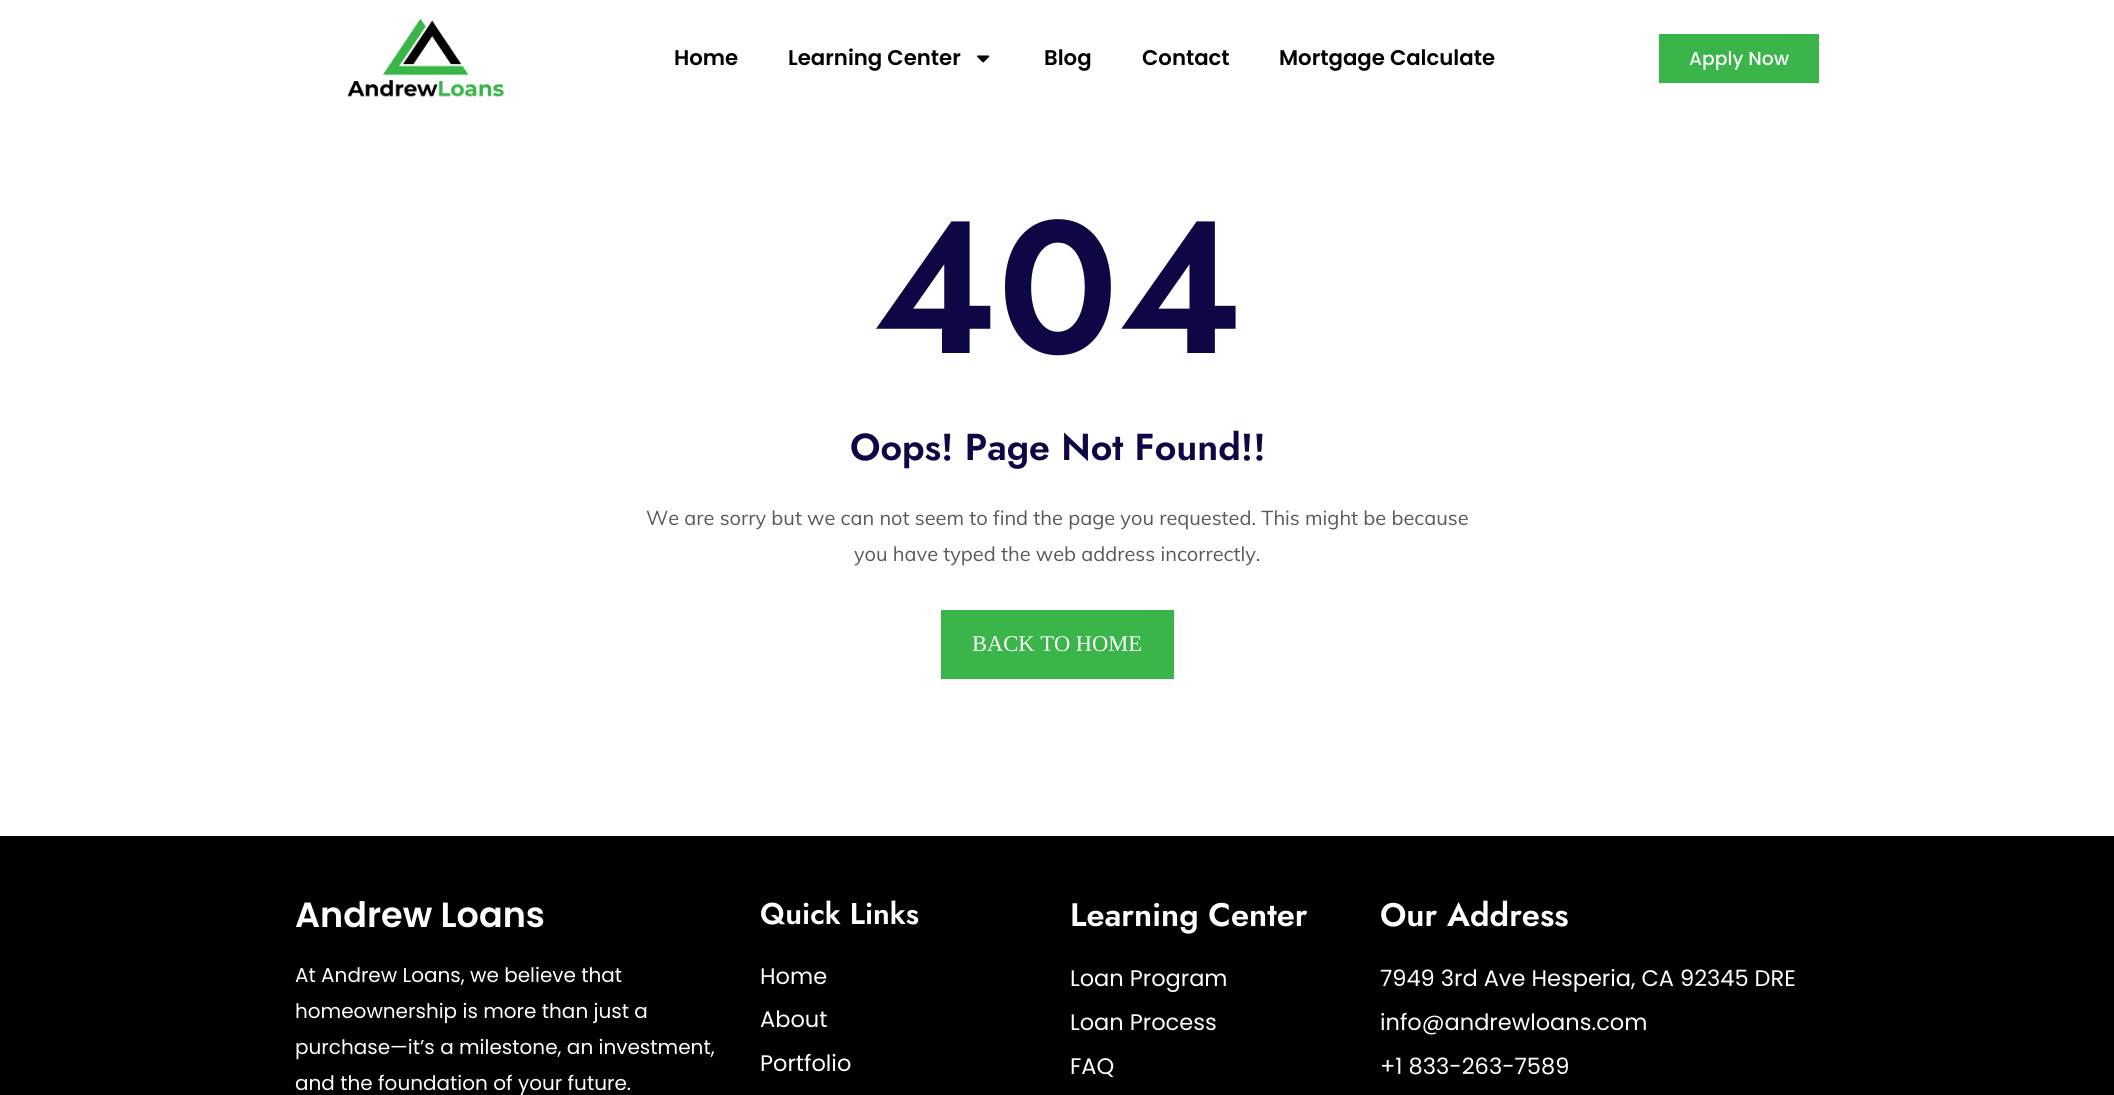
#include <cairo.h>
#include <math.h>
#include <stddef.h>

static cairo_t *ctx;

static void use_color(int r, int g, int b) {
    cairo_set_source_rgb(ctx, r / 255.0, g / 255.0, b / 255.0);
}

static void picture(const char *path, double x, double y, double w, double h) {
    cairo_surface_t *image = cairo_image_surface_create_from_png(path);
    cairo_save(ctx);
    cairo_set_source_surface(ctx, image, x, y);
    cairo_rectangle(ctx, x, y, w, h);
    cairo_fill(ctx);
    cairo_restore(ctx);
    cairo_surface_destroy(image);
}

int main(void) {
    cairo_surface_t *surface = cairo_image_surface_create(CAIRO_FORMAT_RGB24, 2114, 1095);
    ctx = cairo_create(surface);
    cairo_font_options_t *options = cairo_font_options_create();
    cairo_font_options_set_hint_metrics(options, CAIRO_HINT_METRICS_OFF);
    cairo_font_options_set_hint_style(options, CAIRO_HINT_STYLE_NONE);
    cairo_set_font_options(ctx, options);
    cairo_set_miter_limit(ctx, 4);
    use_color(255, 255, 255);
    cairo_paint(ctx);
    picture("img1.png", 347, 18, 157, 79);
    cairo_select_font_face(ctx, "Poppins SemiBold", CAIRO_FONT_SLANT_NORMAL, CAIRO_FONT_WEIGHT_NORMAL);
    cairo_set_font_size(ctx, 21.25);
    use_color(0, 0, 0);
    cairo_move_to(ctx, 674, 65);
    cairo_show_text(ctx, "Home");
    cairo_move_to(ctx, 788, 65);
    cairo_show_text(ctx, "Learning Center");
    picture("img2.png", 977, 55, 13, 8);
    cairo_move_to(ctx, 1044, 65);
    cairo_show_text(ctx, "Blog");
    cairo_move_to(ctx, 1142, 65);
    cairo_show_text(ctx, "Contact");
    cairo_move_to(ctx, 1279, 65);
    cairo_show_text(ctx, "Mortgage Calculate");
    use_color(57, 181, 74);
    cairo_rectangle(ctx, 1659, 34, 160, 49);
    cairo_fill(ctx);
    cairo_select_font_face(ctx, "Poppins Medium", CAIRO_FONT_SLANT_NORMAL, CAIRO_FONT_WEIGHT_NORMAL);
    cairo_set_font_size(ctx, 18.75);
    use_color(255, 255, 255);
    cairo_move_to(ctx, 1689, 65);
    cairo_show_text(ctx, "Apply Now");
    cairo_select_font_face(ctx, "Jost SemiBold", CAIRO_FONT_SLANT_NORMAL, CAIRO_FONT_WEIGHT_NORMAL);
    cairo_set_font_size(ctx, 188);
    use_color(13, 8, 69);
    cairo_move_to(ctx, 873, 353);
    cairo_show_text(ctx, "404");
    cairo_set_font_size(ctx, 37.5);
    cairo_move_to(ctx, 850, 460);
    cairo_show_text(ctx, "Oops! Page Not Found!!");
    cairo_select_font_face(ctx, "Muli", CAIRO_FONT_SLANT_NORMAL, CAIRO_FONT_WEIGHT_NORMAL);
    cairo_set_font_size(ctx, 20);
    use_color(89, 89, 89);
    cairo_move_to(ctx, 646, 525);
    cairo_show_text(ctx, "We are sorry but we can not seem to find the page you requested. This might be because");
    cairo_move_to(ctx, 854, 561);
    cairo_show_text(ctx, "you have typed the web address incorrectly.");
    use_color(57, 181, 74);
    cairo_rectangle(ctx, 941, 610, 233, 69);
    cairo_fill(ctx);
    cairo_select_font_face(ctx, "Liberation Serif", CAIRO_FONT_SLANT_NORMAL, CAIRO_FONT_WEIGHT_NORMAL);
    cairo_set_font_size(ctx, 22.5);
    use_color(255, 255, 255);
    cairo_move_to(ctx, 972, 651);
    cairo_show_text(ctx, "BACK TO HOME");
    use_color(0, 0, 0);
    cairo_rectangle(ctx, 0, 836, 2114, 259);
    cairo_fill(ctx);
    cairo_select_font_face(ctx, "Poppins SemiBold", CAIRO_FONT_SLANT_NORMAL, CAIRO_FONT_WEIGHT_NORMAL);
    cairo_set_font_size(ctx, 35);
    use_color(255, 255, 255);
    cairo_move_to(ctx, 295, 927);
    cairo_show_text(ctx, "Andrew Loans");
    cairo_select_font_face(ctx, "Poppins", CAIRO_FONT_SLANT_NORMAL, CAIRO_FONT_WEIGHT_NORMAL);
    cairo_set_font_size(ctx, 20);
    cairo_move_to(ctx, 295, 982);
    cairo_show_text(ctx, "At Andrew Loans, we believe that");
    cairo_move_to(ctx, 295, 1018);
    cairo_show_text(ctx, "homeownership is more than just a");
    cairo_move_to(ctx, 295, 1054);
    cairo_show_text(ctx, "purchase—it’s a milestone, an investment,");
    cairo_move_to(ctx, 295, 1090);
    cairo_show_text(ctx, "and the foundation of your future.");
    cairo_select_font_face(ctx, "Jost SemiBold", CAIRO_FONT_SLANT_NORMAL, CAIRO_FONT_WEIGHT_NORMAL);
    cairo_set_font_size(ctx, 30);
    cairo_move_to(ctx, 760, 924);
    cairo_show_text(ctx, "Quick Links");
    cairo_select_font_face(ctx, "Poppins", CAIRO_FONT_SLANT_NORMAL, CAIRO_FONT_WEIGHT_NORMAL);
    cairo_set_font_size(ctx, 22.5);
    cairo_move_to(ctx, 760, 984);
    cairo_show_text(ctx, "Home");
    cairo_move_to(ctx, 760, 1027);
    cairo_show_text(ctx, "About");
    cairo_move_to(ctx, 760, 1071);
    cairo_show_text(ctx, "Portfolio");
    cairo_select_font_face(ctx, "Jost SemiBold", CAIRO_FONT_SLANT_NORMAL, CAIRO_FONT_WEIGHT_NORMAL);
    cairo_set_font_size(ctx, 32.5);
    cairo_move_to(ctx, 1070, 926);
    cairo_show_text(ctx, "Learning Center");
    cairo_select_font_face(ctx, "Poppins", CAIRO_FONT_SLANT_NORMAL, CAIRO_FONT_WEIGHT_NORMAL);
    cairo_set_font_size(ctx, 22.5);
    cairo_move_to(ctx, 1070, 986);
    cairo_show_text(ctx, "Loan Program");
    cairo_move_to(ctx, 1070, 1030);
    cairo_show_text(ctx, "Loan Process");
    cairo_move_to(ctx, 1070, 1074);
    cairo_show_text(ctx, "FAQ");
    cairo_select_font_face(ctx, "Jost SemiBold", CAIRO_FONT_SLANT_NORMAL, CAIRO_FONT_WEIGHT_NORMAL);
    cairo_set_font_size(ctx, 32.5);
    cairo_move_to(ctx, 1380, 926);
    cairo_show_text(ctx, "Our Address");
    cairo_select_font_face(ctx, "Poppins", CAIRO_FONT_SLANT_NORMAL, CAIRO_FONT_WEIGHT_NORMAL);
    cairo_set_font_size(ctx, 22.5);
    cairo_move_to(ctx, 1380, 986);
    cairo_show_text(ctx, "7949 3rd Ave Hesperia, CA 92345 DRE");
    cairo_move_to(ctx, 1380, 1030);
    cairo_show_text(ctx, "info@andrewloans.com");
    cairo_move_to(ctx, 1380, 1074);
    cairo_show_text(ctx, "+1 833-263-7589");
    cairo_surface_write_to_png(surface, "result.png");
    cairo_font_options_destroy(options);
    cairo_destroy(ctx);
    cairo_surface_destroy(surface);
    return 0;
}
